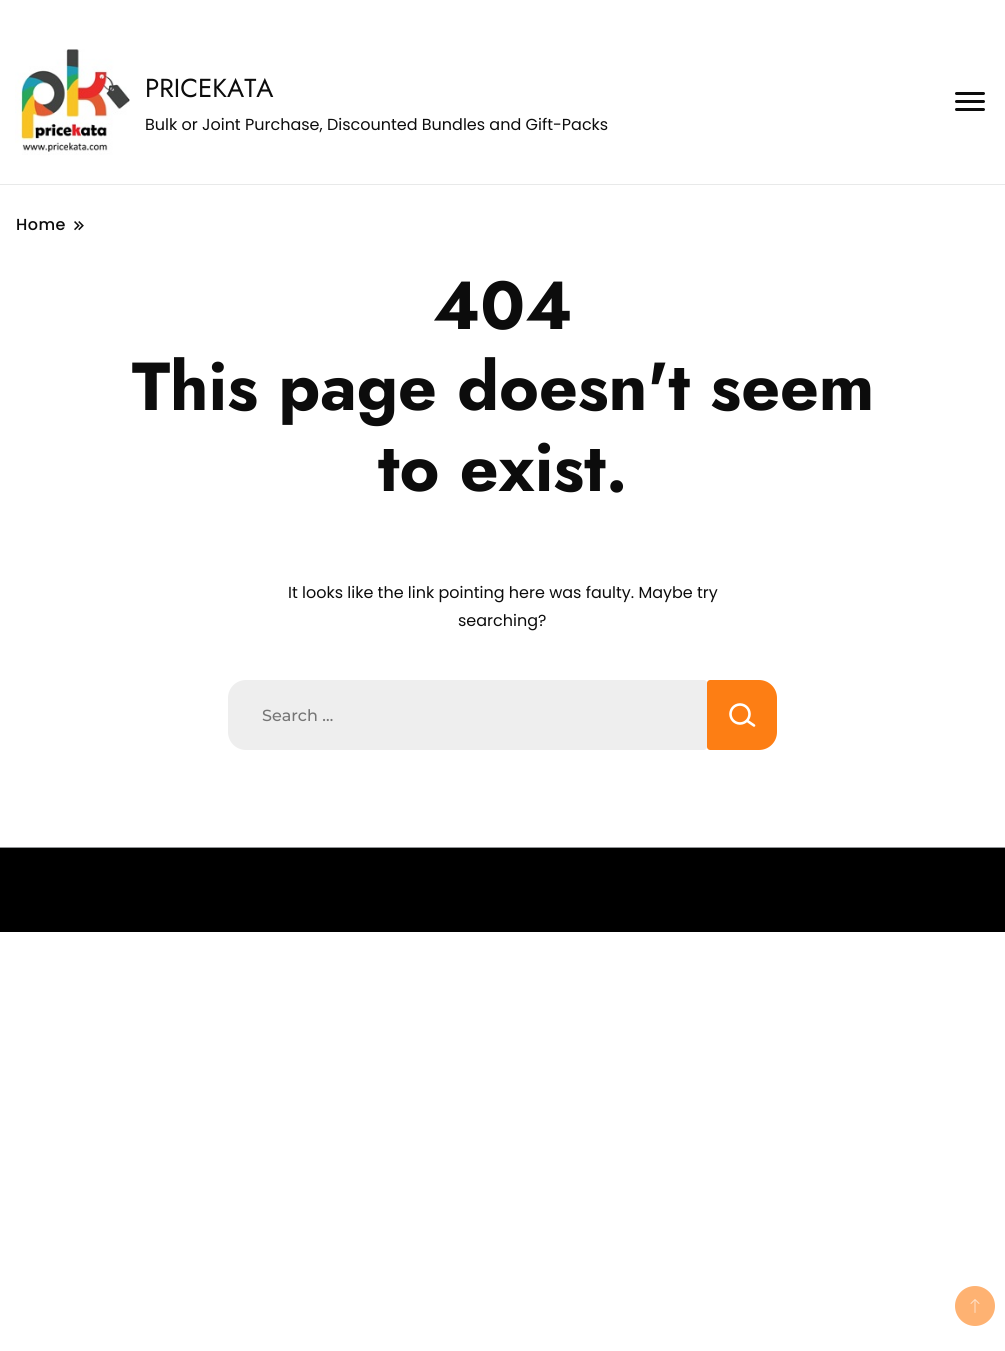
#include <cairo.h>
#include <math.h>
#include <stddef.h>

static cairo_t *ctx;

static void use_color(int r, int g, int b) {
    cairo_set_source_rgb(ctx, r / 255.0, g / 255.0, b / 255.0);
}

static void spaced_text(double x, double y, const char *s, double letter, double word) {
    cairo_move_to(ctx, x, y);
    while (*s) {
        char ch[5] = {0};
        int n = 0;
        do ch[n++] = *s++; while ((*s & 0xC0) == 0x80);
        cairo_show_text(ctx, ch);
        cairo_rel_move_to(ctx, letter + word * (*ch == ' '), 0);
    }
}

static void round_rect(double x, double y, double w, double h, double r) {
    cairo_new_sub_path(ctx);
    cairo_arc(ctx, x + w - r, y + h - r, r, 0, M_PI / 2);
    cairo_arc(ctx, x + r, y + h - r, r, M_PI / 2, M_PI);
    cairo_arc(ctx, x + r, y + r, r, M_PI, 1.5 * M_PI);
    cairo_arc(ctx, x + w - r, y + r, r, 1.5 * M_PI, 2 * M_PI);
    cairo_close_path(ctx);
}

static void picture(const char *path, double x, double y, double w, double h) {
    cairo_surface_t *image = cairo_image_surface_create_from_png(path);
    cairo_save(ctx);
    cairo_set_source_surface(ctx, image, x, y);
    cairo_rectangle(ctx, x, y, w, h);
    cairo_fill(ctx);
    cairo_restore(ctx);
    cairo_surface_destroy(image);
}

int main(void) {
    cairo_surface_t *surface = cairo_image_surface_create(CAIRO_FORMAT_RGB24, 1005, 1351);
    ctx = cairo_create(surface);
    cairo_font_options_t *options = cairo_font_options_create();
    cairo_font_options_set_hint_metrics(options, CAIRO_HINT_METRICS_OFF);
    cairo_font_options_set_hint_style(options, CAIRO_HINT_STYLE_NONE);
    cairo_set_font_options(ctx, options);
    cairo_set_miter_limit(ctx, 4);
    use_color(255, 255, 255);
    cairo_paint(ctx);
    use_color(232, 233, 233);
    cairo_rectangle(ctx, 0, 184, 1005, 1);
    cairo_fill(ctx);
    picture("img1.png", 15, 49, 115, 106);
    cairo_select_font_face(ctx, "Jost", CAIRO_FONT_SLANT_NORMAL, CAIRO_FONT_WEIGHT_NORMAL);
    cairo_set_font_size(ctx, 26);
    use_color(12, 12, 12);
    cairo_move_to(ctx, 145, 97);
    cairo_show_text(ctx, "PRICEKATA");
    cairo_select_font_face(ctx, "Poppins", CAIRO_FONT_SLANT_NORMAL, CAIRO_FONT_WEIGHT_NORMAL);
    cairo_set_font_size(ctx, 16);
    cairo_move_to(ctx, 145, 130);
    cairo_show_text(ctx, "Bulk or Joint Purchase, Discounted Bundles and Gift-Packs");
    round_rect(955, 92, 30, 3, 1.5);
    cairo_fill(ctx);
    round_rect(955, 100, 30, 3, 1.5);
    cairo_fill(ctx);
    round_rect(955, 108, 30, 3, 1.5);
    cairo_fill(ctx);
    cairo_select_font_face(ctx, "Poppins Medium", CAIRO_FONT_SLANT_NORMAL, CAIRO_FONT_WEIGHT_NORMAL);
    spaced_text(16, 230, "Home", 0.5, 0);
    picture("img2.png", 74, 221, 10, 10);
    cairo_select_font_face(ctx, "Jost", CAIRO_FONT_SLANT_NORMAL, CAIRO_FONT_WEIGHT_BOLD);
    cairo_set_font_size(ctx, 67.75);
    cairo_move_to(ctx, 433, 329);
    cairo_show_text(ctx, "404");
    cairo_move_to(ctx, 132, 410);
    cairo_show_text(ctx, "This page doesn't seem");
    cairo_move_to(ctx, 378, 491);
    cairo_show_text(ctx, "to exist.");
    cairo_select_font_face(ctx, "Poppins", CAIRO_FONT_SLANT_NORMAL, CAIRO_FONT_WEIGHT_NORMAL);
    cairo_set_font_size(ctx, 16);
    cairo_move_to(ctx, 288, 598);
    cairo_show_text(ctx, "It looks like the link pointing here was faulty. Maybe try");
    cairo_move_to(ctx, 458, 626);
    cairo_show_text(ctx, "searching?");
    use_color(238, 238, 238);
    cairo_new_path(ctx);
    cairo_move_to(ctx, 246, 680);
    cairo_line_to(ctx, 704, 680);
    cairo_curve_to(ctx, 705.5, 680, 707, 681.5, 707, 683);
    cairo_line_to(ctx, 707, 747);
    cairo_curve_to(ctx, 707, 748.5, 705.5, 750, 704, 750);
    cairo_line_to(ctx, 246, 750);
    cairo_curve_to(ctx, 236, 750, 228, 742, 228, 732);
    cairo_line_to(ctx, 228, 698);
    cairo_curve_to(ctx, 228, 688, 236, 680, 246, 680);
    cairo_close_path(ctx);
    cairo_fill(ctx);
    cairo_select_font_face(ctx, "Montserrat Medium", CAIRO_FONT_SLANT_NORMAL, CAIRO_FONT_WEIGHT_NORMAL);
    use_color(117, 117, 117);
    cairo_move_to(ctx, 262, 721);
    cairo_show_text(ctx, "Search …");
    use_color(253, 126, 20);
    cairo_new_path(ctx);
    cairo_move_to(ctx, 710, 680);
    cairo_line_to(ctx, 759, 680);
    cairo_curve_to(ctx, 769, 680, 777, 688, 777, 698);
    cairo_line_to(ctx, 777, 732);
    cairo_curve_to(ctx, 777, 742, 769, 750, 759, 750);
    cairo_line_to(ctx, 710, 750);
    cairo_curve_to(ctx, 708.5, 750, 707, 748.5, 707, 747);
    cairo_line_to(ctx, 707, 683);
    cairo_curve_to(ctx, 707, 681.5, 708.5, 680, 710, 680);
    cairo_close_path(ctx);
    cairo_fill(ctx);
    cairo_arc(ctx, 740, 714, 9.5, 0, 2 * M_PI);
    use_color(255, 255, 255);
    cairo_set_line_width(ctx, 2.6);
    cairo_stroke(ctx);
    cairo_new_path(ctx);
    cairo_move_to(ctx, 747.5, 721);
    cairo_line_to(ctx, 754, 725.5);
    cairo_set_line_cap(ctx, CAIRO_LINE_CAP_ROUND);
    cairo_set_line_join(ctx, CAIRO_LINE_JOIN_ROUND);
    cairo_stroke(ctx);
    use_color(0, 0, 0);
    cairo_rectangle(ctx, 0, 848, 1005, 84);
    cairo_fill(ctx);
    use_color(146, 148, 151);
    cairo_rectangle(ctx, 0, 847, 1005, 1);
    cairo_fill(ctx);
    use_color(254, 178, 114);
    cairo_arc(ctx, 975, 1306, 20, 0, 2 * M_PI);
    cairo_fill(ctx);
    picture("img3.png", 970, 1299, 10, 14);
    cairo_surface_write_to_png(surface, "result.png");
    cairo_font_options_destroy(options);
    cairo_destroy(ctx);
    cairo_surface_destroy(surface);
    return 0;
}
